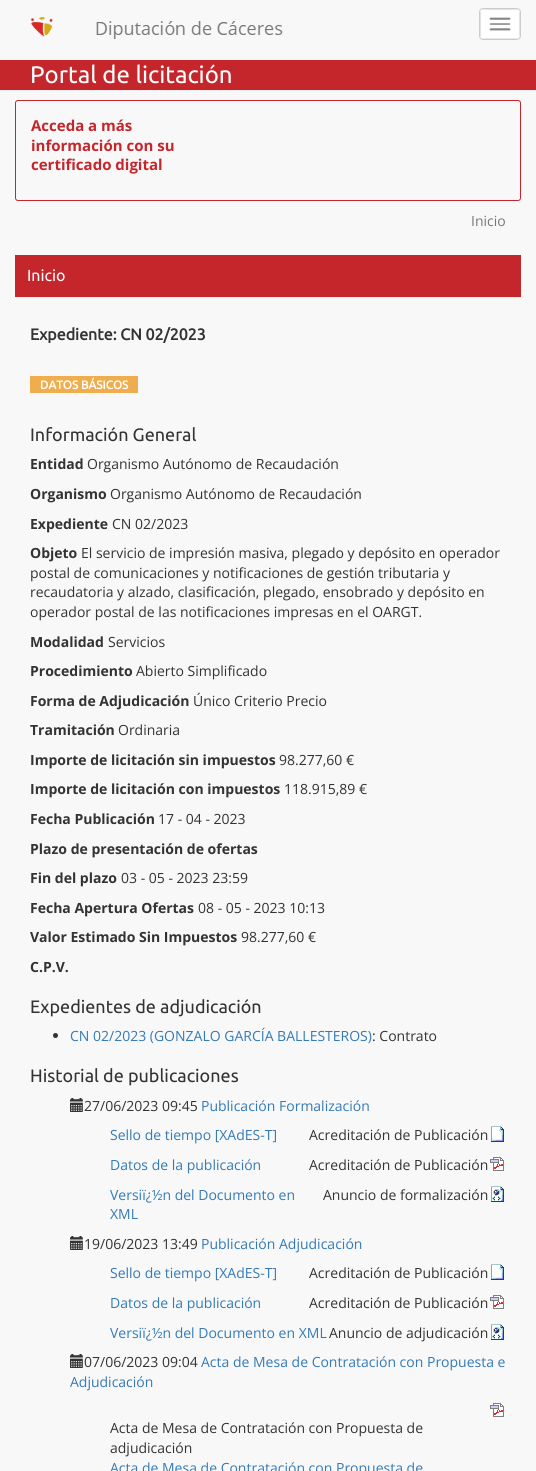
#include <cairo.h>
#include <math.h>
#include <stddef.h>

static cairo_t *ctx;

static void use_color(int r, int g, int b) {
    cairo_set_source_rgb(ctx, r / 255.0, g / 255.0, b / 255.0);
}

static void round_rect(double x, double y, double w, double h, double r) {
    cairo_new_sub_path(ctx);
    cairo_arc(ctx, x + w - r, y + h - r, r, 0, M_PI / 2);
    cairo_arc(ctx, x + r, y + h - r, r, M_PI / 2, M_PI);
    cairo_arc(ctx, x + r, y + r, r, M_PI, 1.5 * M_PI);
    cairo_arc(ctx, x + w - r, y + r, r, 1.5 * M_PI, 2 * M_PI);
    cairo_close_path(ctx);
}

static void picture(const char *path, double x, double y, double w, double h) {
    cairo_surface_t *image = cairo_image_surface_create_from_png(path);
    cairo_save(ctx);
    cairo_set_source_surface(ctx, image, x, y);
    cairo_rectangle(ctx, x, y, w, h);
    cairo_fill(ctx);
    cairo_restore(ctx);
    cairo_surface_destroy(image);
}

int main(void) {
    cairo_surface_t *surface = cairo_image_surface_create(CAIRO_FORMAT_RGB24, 536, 1471);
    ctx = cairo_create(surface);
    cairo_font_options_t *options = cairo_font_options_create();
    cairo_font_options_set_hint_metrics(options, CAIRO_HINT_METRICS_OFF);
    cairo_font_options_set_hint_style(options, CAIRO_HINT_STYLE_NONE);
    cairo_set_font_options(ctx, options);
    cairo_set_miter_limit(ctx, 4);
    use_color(248, 248, 248);
    cairo_paint(ctx);
    use_color(196, 38, 43);
    cairo_rectangle(ctx, 0, 60, 536, 30);
    cairo_fill(ctx);
    use_color(238, 238, 238);
    cairo_rectangle(ctx, 0, 90, 536, 1);
    cairo_fill(ctx);
    picture("img1.png", 30, 17, 253, 22);
    cairo_select_font_face(ctx, "Ubuntu", CAIRO_FONT_SLANT_NORMAL, CAIRO_FONT_WEIGHT_NORMAL);
    cairo_set_font_size(ctx, 24);
    use_color(255, 255, 255);
    cairo_move_to(ctx, 30, 83);
    cairo_show_text(ctx, "Portal de licitación");
    round_rect(479, 8, 42, 32, 4);
    cairo_fill(ctx);
    picture("img2.png", 480, 9, 40, 30);
    round_rect(479.5, 8.5, 41, 31, 3.5);
    use_color(204, 204, 204);
    cairo_set_line_width(ctx, 1);
    cairo_stroke(ctx);
    round_rect(15.5, 100.5, 505, 100, 2.5);
    use_color(196, 38, 43);
    cairo_stroke(ctx);
    cairo_select_font_face(ctx, "Open Sans", CAIRO_FONT_SLANT_NORMAL, CAIRO_FONT_WEIGHT_BOLD);
    cairo_set_font_size(ctx, 15);
    cairo_move_to(ctx, 31, 131);
    cairo_show_text(ctx, "Acceda a más");
    cairo_move_to(ctx, 31, 151);
    cairo_show_text(ctx, "información con su");
    cairo_move_to(ctx, 31, 170);
    cairo_show_text(ctx, "certificado digital");
    cairo_select_font_face(ctx, "Open Sans", CAIRO_FONT_SLANT_NORMAL, CAIRO_FONT_WEIGHT_NORMAL);
    cairo_set_font_size(ctx, 14);
    use_color(119, 119, 119);
    cairo_move_to(ctx, 471, 226);
    cairo_show_text(ctx, "Inicio");
    use_color(196, 38, 43);
    cairo_rectangle(ctx, 15, 255, 506, 42);
    cairo_fill(ctx);
    use_color(238, 238, 238);
    cairo_rectangle(ctx, 15, 297, 506, 1);
    cairo_fill(ctx);
    cairo_select_font_face(ctx, "Ubuntu", CAIRO_FONT_SLANT_NORMAL, CAIRO_FONT_WEIGHT_NORMAL);
    cairo_set_font_size(ctx, 16);
    use_color(255, 255, 255);
    cairo_move_to(ctx, 27, 281);
    cairo_show_text(ctx, "Inicio");
    cairo_select_font_face(ctx, "Ubuntu", CAIRO_FONT_SLANT_NORMAL, CAIRO_FONT_WEIGHT_BOLD);
    use_color(51, 51, 51);
    cairo_move_to(ctx, 30, 340);
    cairo_show_text(ctx, "Expediente: CN 02/2023");
    use_color(240, 173, 78);
    cairo_rectangle(ctx, 30, 376, 108, 17);
    cairo_fill(ctx);
    cairo_set_font_size(ctx, 11.75);
    use_color(255, 255, 255);
    cairo_move_to(ctx, 40, 389);
    cairo_show_text(ctx, "DATOS BÁSICOS");
    cairo_select_font_face(ctx, "Ubuntu", CAIRO_FONT_SLANT_NORMAL, CAIRO_FONT_WEIGHT_NORMAL);
    cairo_set_font_size(ctx, 18);
    use_color(51, 51, 51);
    cairo_move_to(ctx, 30, 441);
    cairo_show_text(ctx, "Información General");
    cairo_select_font_face(ctx, "Open Sans", CAIRO_FONT_SLANT_NORMAL, CAIRO_FONT_WEIGHT_BOLD);
    cairo_set_font_size(ctx, 14);
    cairo_move_to(ctx, 30, 469);
    cairo_show_text(ctx, "Entidad");
    cairo_select_font_face(ctx, "Open Sans", CAIRO_FONT_SLANT_NORMAL, CAIRO_FONT_WEIGHT_NORMAL);
    cairo_move_to(ctx, 87, 469);
    cairo_show_text(ctx, "Organismo Autónomo de Recaudación");
    cairo_select_font_face(ctx, "Open Sans", CAIRO_FONT_SLANT_NORMAL, CAIRO_FONT_WEIGHT_BOLD);
    cairo_move_to(ctx, 30, 499);
    cairo_show_text(ctx, "Organismo");
    cairo_select_font_face(ctx, "Open Sans", CAIRO_FONT_SLANT_NORMAL, CAIRO_FONT_WEIGHT_NORMAL);
    cairo_move_to(ctx, 110, 499);
    cairo_show_text(ctx, "Organismo Autónomo de Recaudación");
    cairo_select_font_face(ctx, "Open Sans", CAIRO_FONT_SLANT_NORMAL, CAIRO_FONT_WEIGHT_BOLD);
    cairo_move_to(ctx, 30, 529);
    cairo_show_text(ctx, "Expediente");
    cairo_select_font_face(ctx, "Open Sans", CAIRO_FONT_SLANT_NORMAL, CAIRO_FONT_WEIGHT_NORMAL);
    cairo_move_to(ctx, 112, 529);
    cairo_show_text(ctx, "CN 02/2023");
    cairo_select_font_face(ctx, "Open Sans", CAIRO_FONT_SLANT_NORMAL, CAIRO_FONT_WEIGHT_BOLD);
    cairo_move_to(ctx, 30, 558);
    cairo_show_text(ctx, "Objeto");
    cairo_select_font_face(ctx, "Open Sans", CAIRO_FONT_SLANT_NORMAL, CAIRO_FONT_WEIGHT_NORMAL);
    cairo_move_to(ctx, 81, 558);
    cairo_show_text(ctx, "El servicio de impresión masiva, plegado y depósito en operador");
    cairo_move_to(ctx, 30, 578);
    cairo_show_text(ctx, "postal de comunicaciones y notificaciones de gestión tributaria y");
    cairo_move_to(ctx, 30, 597);
    cairo_show_text(ctx, "recaudatoria y alzado, clasificación, plegado, ensobrado y depósito en");
    cairo_move_to(ctx, 30, 617);
    cairo_show_text(ctx, "operador postal de las notificaciones impresas en el OARGT.");
    cairo_select_font_face(ctx, "Open Sans", CAIRO_FONT_SLANT_NORMAL, CAIRO_FONT_WEIGHT_BOLD);
    cairo_move_to(ctx, 30, 647);
    cairo_show_text(ctx, "Modalidad");
    cairo_select_font_face(ctx, "Open Sans", CAIRO_FONT_SLANT_NORMAL, CAIRO_FONT_WEIGHT_NORMAL);
    cairo_move_to(ctx, 108, 647);
    cairo_show_text(ctx, "Servicios");
    cairo_select_font_face(ctx, "Open Sans", CAIRO_FONT_SLANT_NORMAL, CAIRO_FONT_WEIGHT_BOLD);
    cairo_move_to(ctx, 30, 676);
    cairo_show_text(ctx, "Procedimiento");
    cairo_select_font_face(ctx, "Open Sans", CAIRO_FONT_SLANT_NORMAL, CAIRO_FONT_WEIGHT_NORMAL);
    cairo_move_to(ctx, 136, 676);
    cairo_show_text(ctx, "Abierto Simplificado");
    cairo_select_font_face(ctx, "Open Sans", CAIRO_FONT_SLANT_NORMAL, CAIRO_FONT_WEIGHT_BOLD);
    cairo_move_to(ctx, 30, 706);
    cairo_show_text(ctx, "Forma de Adjudicación");
    cairo_select_font_face(ctx, "Open Sans", CAIRO_FONT_SLANT_NORMAL, CAIRO_FONT_WEIGHT_NORMAL);
    cairo_move_to(ctx, 193, 706);
    cairo_show_text(ctx, "Único Criterio Precio");
    cairo_select_font_face(ctx, "Open Sans", CAIRO_FONT_SLANT_NORMAL, CAIRO_FONT_WEIGHT_BOLD);
    cairo_move_to(ctx, 30, 735);
    cairo_show_text(ctx, "Tramitación");
    cairo_select_font_face(ctx, "Open Sans", CAIRO_FONT_SLANT_NORMAL, CAIRO_FONT_WEIGHT_NORMAL);
    cairo_move_to(ctx, 118, 735);
    cairo_show_text(ctx, "Ordinaria");
    cairo_select_font_face(ctx, "Open Sans", CAIRO_FONT_SLANT_NORMAL, CAIRO_FONT_WEIGHT_BOLD);
    cairo_move_to(ctx, 30, 765);
    cairo_show_text(ctx, "Importe de licitación sin impuestos");
    cairo_select_font_face(ctx, "Open Sans", CAIRO_FONT_SLANT_NORMAL, CAIRO_FONT_WEIGHT_NORMAL);
    cairo_move_to(ctx, 279, 765);
    cairo_show_text(ctx, "98.277,60 €");
    cairo_select_font_face(ctx, "Open Sans", CAIRO_FONT_SLANT_NORMAL, CAIRO_FONT_WEIGHT_BOLD);
    cairo_move_to(ctx, 30, 794);
    cairo_show_text(ctx, "Importe de licitación con impuestos");
    cairo_select_font_face(ctx, "Open Sans", CAIRO_FONT_SLANT_NORMAL, CAIRO_FONT_WEIGHT_NORMAL);
    cairo_move_to(ctx, 284, 794);
    cairo_show_text(ctx, "118.915,89 €");
    cairo_select_font_face(ctx, "Open Sans", CAIRO_FONT_SLANT_NORMAL, CAIRO_FONT_WEIGHT_BOLD);
    cairo_move_to(ctx, 30, 824);
    cairo_show_text(ctx, "Fecha Publicación");
    cairo_select_font_face(ctx, "Open Sans", CAIRO_FONT_SLANT_NORMAL, CAIRO_FONT_WEIGHT_NORMAL);
    cairo_move_to(ctx, 158, 824);
    cairo_show_text(ctx, "17 - 04 - 2023");
    cairo_select_font_face(ctx, "Open Sans", CAIRO_FONT_SLANT_NORMAL, CAIRO_FONT_WEIGHT_BOLD);
    cairo_move_to(ctx, 30, 854);
    cairo_show_text(ctx, "Plazo de presentación de ofertas");
    cairo_move_to(ctx, 30, 883);
    cairo_show_text(ctx, "Fin del plazo");
    cairo_select_font_face(ctx, "Open Sans", CAIRO_FONT_SLANT_NORMAL, CAIRO_FONT_WEIGHT_NORMAL);
    cairo_move_to(ctx, 121, 883);
    cairo_show_text(ctx, "03 - 05 - 2023 23:59");
    cairo_select_font_face(ctx, "Open Sans", CAIRO_FONT_SLANT_NORMAL, CAIRO_FONT_WEIGHT_BOLD);
    cairo_move_to(ctx, 30, 913);
    cairo_show_text(ctx, "Fecha Apertura Ofertas");
    cairo_select_font_face(ctx, "Open Sans", CAIRO_FONT_SLANT_NORMAL, CAIRO_FONT_WEIGHT_NORMAL);
    cairo_move_to(ctx, 198, 913);
    cairo_show_text(ctx, "08 - 05 - 2023 10:13");
    cairo_select_font_face(ctx, "Open Sans", CAIRO_FONT_SLANT_NORMAL, CAIRO_FONT_WEIGHT_BOLD);
    cairo_move_to(ctx, 30, 942);
    cairo_show_text(ctx, "Valor Estimado Sin Impuestos");
    cairo_select_font_face(ctx, "Open Sans", CAIRO_FONT_SLANT_NORMAL, CAIRO_FONT_WEIGHT_NORMAL);
    cairo_move_to(ctx, 241, 942);
    cairo_show_text(ctx, "98.277,60 €");
    cairo_select_font_face(ctx, "Open Sans", CAIRO_FONT_SLANT_NORMAL, CAIRO_FONT_WEIGHT_BOLD);
    cairo_move_to(ctx, 30, 972);
    cairo_show_text(ctx, "C.P.V.");
    cairo_select_font_face(ctx, "Ubuntu", CAIRO_FONT_SLANT_NORMAL, CAIRO_FONT_WEIGHT_NORMAL);
    cairo_set_font_size(ctx, 18);
    cairo_move_to(ctx, 30, 1013);
    cairo_show_text(ctx, "Expedientes de adjudicación");
    cairo_new_path(ctx);
    cairo_arc(ctx, 55.5, 1035.5, 2.5, 0, 2 * M_PI);
    cairo_fill(ctx);
    cairo_select_font_face(ctx, "Open Sans", CAIRO_FONT_SLANT_NORMAL, CAIRO_FONT_WEIGHT_NORMAL);
    cairo_set_font_size(ctx, 14);
    use_color(51, 122, 183);
    cairo_move_to(ctx, 70, 1041);
    cairo_show_text(ctx, "CN 02/2023 (GONZALO GARCÍA BALLESTEROS)");
    use_color(51, 51, 51);
    cairo_move_to(ctx, 372, 1041);
    cairo_show_text(ctx, ": Contrato");
    cairo_select_font_face(ctx, "Ubuntu", CAIRO_FONT_SLANT_NORMAL, CAIRO_FONT_WEIGHT_NORMAL);
    cairo_set_font_size(ctx, 18);
    cairo_move_to(ctx, 30, 1082);
    cairo_show_text(ctx, "Historial de publicaciones");
    picture("img3.png", 70, 1098, 13, 14);
    cairo_select_font_face(ctx, "Open Sans", CAIRO_FONT_SLANT_NORMAL, CAIRO_FONT_WEIGHT_NORMAL);
    cairo_set_font_size(ctx, 14);
    cairo_move_to(ctx, 84, 1111);
    cairo_show_text(ctx, "27/06/2023 09:45");
    use_color(51, 122, 183);
    cairo_move_to(ctx, 201, 1111);
    cairo_show_text(ctx, "Publicación Formalización");
    cairo_move_to(ctx, 110, 1140);
    cairo_show_text(ctx, "Sello de tiempo [XAdES-T]");
    use_color(51, 51, 51);
    cairo_move_to(ctx, 309, 1140);
    cairo_show_text(ctx, "Acreditación de Publicación");
    picture("img4.png", 491, 1126, 13, 16);
    use_color(51, 122, 183);
    cairo_move_to(ctx, 110, 1170);
    cairo_show_text(ctx, "Datos de la publicación");
    use_color(51, 51, 51);
    cairo_move_to(ctx, 309, 1170);
    cairo_show_text(ctx, "Acreditación de Publicación");
    picture("img5.png", 490, 1157, 14, 14);
    use_color(51, 122, 183);
    cairo_move_to(ctx, 110, 1200);
    cairo_show_text(ctx, "Versiï¿½n del Documento en");
    use_color(51, 51, 51);
    cairo_move_to(ctx, 323, 1200);
    cairo_show_text(ctx, "Anuncio de formalización");
    picture("img6.png", 491, 1186, 13, 16);
    use_color(51, 122, 183);
    cairo_move_to(ctx, 110, 1219);
    cairo_show_text(ctx, "XML");
    picture("img3.png", 70, 1236, 13, 14);
    use_color(51, 51, 51);
    cairo_move_to(ctx, 84, 1249);
    cairo_show_text(ctx, "19/06/2023 13:49");
    use_color(51, 122, 183);
    cairo_move_to(ctx, 201, 1249);
    cairo_show_text(ctx, "Publicación Adjudicación");
    cairo_move_to(ctx, 110, 1278);
    cairo_show_text(ctx, "Sello de tiempo [XAdES-T]");
    use_color(51, 51, 51);
    cairo_move_to(ctx, 309, 1278);
    cairo_show_text(ctx, "Acreditación de Publicación");
    picture("img4.png", 491, 1264, 13, 16);
    use_color(51, 122, 183);
    cairo_move_to(ctx, 110, 1308);
    cairo_show_text(ctx, "Datos de la publicación");
    use_color(51, 51, 51);
    cairo_move_to(ctx, 309, 1308);
    cairo_show_text(ctx, "Acreditación de Publicación");
    picture("img5.png", 490, 1295, 14, 14);
    use_color(51, 122, 183);
    cairo_move_to(ctx, 110, 1338);
    cairo_show_text(ctx, "Versiï¿½n del Documento en XML");
    use_color(51, 51, 51);
    cairo_move_to(ctx, 329, 1338);
    cairo_show_text(ctx, "Anuncio de adjudicación");
    picture("img6.png", 491, 1324, 13, 16);
    picture("img3.png", 70, 1354, 13, 14);
    cairo_move_to(ctx, 84, 1367);
    cairo_show_text(ctx, "07/06/2023 09:04");
    use_color(51, 122, 183);
    cairo_move_to(ctx, 201, 1367);
    cairo_show_text(ctx, "Acta de Mesa de Contratación con Propuesta e");
    cairo_move_to(ctx, 70, 1387);
    cairo_show_text(ctx, "Adjudicación");
    picture("img5.png", 490, 1403, 14, 14);
    use_color(51, 51, 51);
    cairo_move_to(ctx, 110, 1433);
    cairo_show_text(ctx, "Acta de Mesa de Contratación con Propuesta de");
    cairo_move_to(ctx, 110, 1453);
    cairo_show_text(ctx, "adjudicación");
    use_color(51, 122, 183);
    cairo_move_to(ctx, 110, 1473);
    cairo_show_text(ctx, "Acta de Mesa de Contratación con Propuesta de");
    cairo_surface_write_to_png(surface, "result.png");
    cairo_font_options_destroy(options);
    cairo_destroy(ctx);
    cairo_surface_destroy(surface);
    return 0;
}
